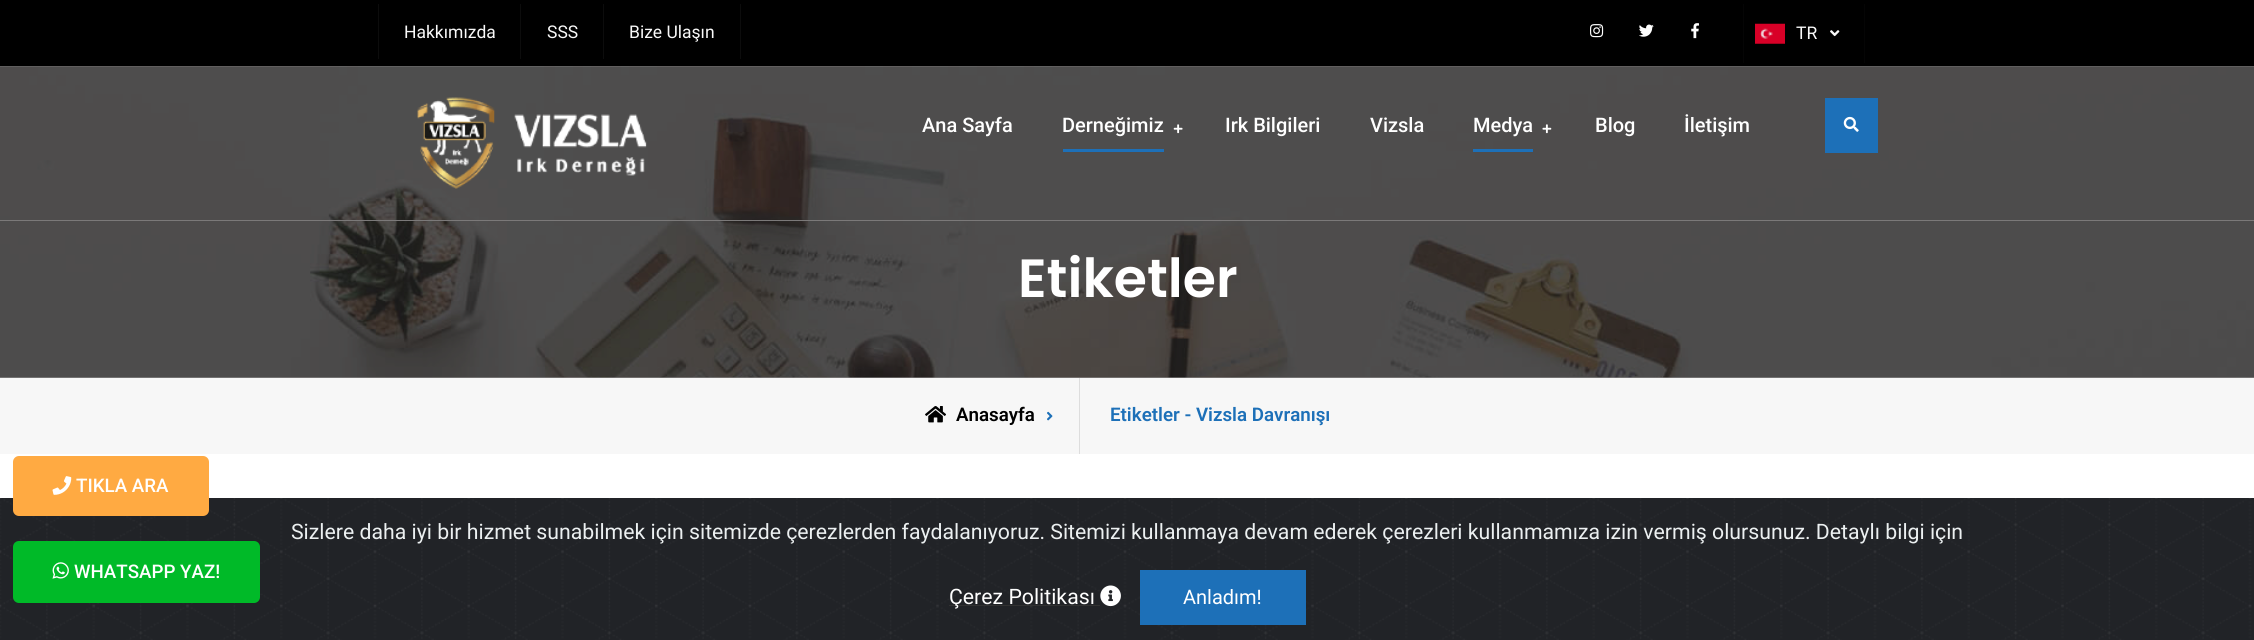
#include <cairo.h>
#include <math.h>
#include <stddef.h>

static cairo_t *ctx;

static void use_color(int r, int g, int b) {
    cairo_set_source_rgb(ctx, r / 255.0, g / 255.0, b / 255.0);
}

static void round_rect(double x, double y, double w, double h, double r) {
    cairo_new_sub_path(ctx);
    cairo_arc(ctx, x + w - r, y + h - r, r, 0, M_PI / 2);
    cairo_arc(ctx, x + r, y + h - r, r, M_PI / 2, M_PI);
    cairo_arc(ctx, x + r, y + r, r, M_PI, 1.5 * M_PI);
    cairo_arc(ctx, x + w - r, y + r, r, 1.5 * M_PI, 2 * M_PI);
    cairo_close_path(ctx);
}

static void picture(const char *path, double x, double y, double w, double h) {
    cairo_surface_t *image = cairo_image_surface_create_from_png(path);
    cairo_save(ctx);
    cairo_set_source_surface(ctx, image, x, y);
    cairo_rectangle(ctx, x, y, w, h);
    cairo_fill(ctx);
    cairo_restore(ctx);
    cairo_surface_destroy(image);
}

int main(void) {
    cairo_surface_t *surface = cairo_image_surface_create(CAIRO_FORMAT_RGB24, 2254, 640);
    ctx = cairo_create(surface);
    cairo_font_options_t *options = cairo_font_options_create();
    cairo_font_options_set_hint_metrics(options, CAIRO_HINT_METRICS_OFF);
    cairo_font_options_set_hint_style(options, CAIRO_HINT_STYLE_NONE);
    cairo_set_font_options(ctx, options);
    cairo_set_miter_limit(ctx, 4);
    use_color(255, 255, 255);
    cairo_paint(ctx);
    use_color(154, 153, 153);
    cairo_rectangle(ctx, 0, 66, 2254, 312);
    cairo_fill(ctx);
    use_color(0, 0, 0);
    cairo_rectangle(ctx, 0, 0, 2254, 66);
    cairo_fill(ctx);
    use_color(12, 12, 12);
    cairo_rectangle(ctx, 520, 4, 1, 55);
    cairo_fill(ctx);
    cairo_rectangle(ctx, 378, 4, 1, 55);
    cairo_fill(ctx);
    cairo_select_font_face(ctx, "Roboto", CAIRO_FONT_SLANT_NORMAL, CAIRO_FONT_WEIGHT_NORMAL);
    cairo_set_font_size(ctx, 17.5);
    use_color(249, 249, 249);
    cairo_move_to(ctx, 404, 38);
    cairo_show_text(ctx, "Hakkımızda");
    use_color(12, 12, 12);
    cairo_rectangle(ctx, 603, 4, 1, 55);
    cairo_fill(ctx);
    use_color(249, 249, 249);
    cairo_move_to(ctx, 547, 38);
    cairo_show_text(ctx, "SSS");
    use_color(12, 12, 12);
    cairo_rectangle(ctx, 740, 4, 1, 55);
    cairo_fill(ctx);
    use_color(249, 249, 249);
    cairo_move_to(ctx, 629, 38);
    cairo_show_text(ctx, "Bize Ulaşın");
    picture("img1.png", 1590, 24, 14, 14);
    picture("img2.png", 1639, 24, 15, 13);
    picture("img3.png", 1691, 23, 8, 16);
    use_color(5, 5, 5);
    cairo_rectangle(ctx, 1864, 4, 1, 59);
    cairo_fill(ctx);
    cairo_rectangle(ctx, 1743, 4, 1, 59);
    cairo_fill(ctx);
    picture("img4.png", 1755, 23, 30, 21);
    use_color(249, 249, 249);
    cairo_move_to(ctx, 1796, 39);
    cairo_show_text(ctx, "TR");
    picture("img5.png", 1830, 30, 10, 7);
    picture("img10.png", 0, 66, 2254, 312);
    use_color(123, 121, 121);
    cairo_rectangle(ctx, 0, 220, 2254, 1);
    cairo_fill(ctx);
    picture("img6.png", 417, 97, 230, 92);
    cairo_select_font_face(ctx, "Roboto Medium", CAIRO_FONT_SLANT_NORMAL, CAIRO_FONT_WEIGHT_NORMAL);
    cairo_set_font_size(ctx, 20);
    use_color(255, 255, 255);
    cairo_move_to(ctx, 922, 132);
    cairo_show_text(ctx, "Ana Sayfa");
    cairo_move_to(ctx, 1062, 132);
    cairo_show_text(ctx, "Derneğimiz");
    picture("img7.png", 1173, 124, 10, 10);
    use_color(29, 112, 184);
    cairo_rectangle(ctx, 1063, 149, 101, 3);
    cairo_fill(ctx);
    use_color(255, 255, 255);
    cairo_move_to(ctx, 1225, 132);
    cairo_show_text(ctx, "Irk Bilgileri");
    cairo_move_to(ctx, 1370, 132);
    cairo_show_text(ctx, "Vizsla");
    cairo_move_to(ctx, 1473, 132);
    cairo_show_text(ctx, "Medya");
    picture("img8.png", 1542, 124, 10, 10);
    use_color(29, 112, 184);
    cairo_rectangle(ctx, 1473, 149, 60, 3);
    cairo_fill(ctx);
    use_color(255, 255, 255);
    cairo_move_to(ctx, 1595, 132);
    cairo_show_text(ctx, "Blog");
    cairo_move_to(ctx, 1684, 132);
    cairo_show_text(ctx, "İletişim");
    use_color(29, 112, 184);
    cairo_rectangle(ctx, 1825, 98, 53, 55);
    cairo_fill(ctx);
    picture("img9.png", 1843, 116, 16, 16);
    cairo_select_font_face(ctx, "Poppins SemiBold", CAIRO_FONT_SLANT_NORMAL, CAIRO_FONT_WEIGHT_NORMAL);
    cairo_set_font_size(ctx, 53.75);
    use_color(255, 255, 255);
    cairo_move_to(ctx, 1018, 297);
    cairo_show_text(ctx, "Etiketler");
    use_color(247, 247, 247);
    cairo_rectangle(ctx, 0, 378, 2254, 76);
    cairo_fill(ctx);
    use_color(221, 221, 221);
    cairo_rectangle(ctx, 1079, 378, 1, 76);
    cairo_fill(ctx);
    picture("img11.png", 925, 406, 21, 17);
    cairo_select_font_face(ctx, "Roboto SemiBold", CAIRO_FONT_SLANT_NORMAL, CAIRO_FONT_WEIGHT_NORMAL);
    cairo_set_font_size(ctx, 18.75);
    use_color(0, 0, 0);
    cairo_move_to(ctx, 956, 421);
    cairo_show_text(ctx, "Anasayfa");
    picture("img12.png", 1047, 411, 6, 10);
    use_color(29, 112, 184);
    cairo_move_to(ctx, 1110, 421);
    cairo_show_text(ctx, "Etiketler - Vizsla Davranışı");
    picture("img15.png", 0, 498, 2252, 142);
    use_color(255, 170, 66);
    round_rect(13, 456, 196, 60, 6);
    cairo_fill(ctx);
    picture("img13.png", 52, 476, 20, 19);
    cairo_select_font_face(ctx, "Roboto Medium", CAIRO_FONT_SLANT_NORMAL, CAIRO_FONT_WEIGHT_NORMAL);
    use_color(255, 255, 255);
    cairo_move_to(ctx, 76, 492);
    cairo_show_text(ctx, "TIKLA ARA");
    use_color(0, 186, 40);
    round_rect(13, 541, 247, 62, 6);
    cairo_fill(ctx);
    picture("img14.png", 52, 562, 17, 17);
    use_color(255, 255, 255);
    cairo_move_to(ctx, 74, 578);
    cairo_show_text(ctx, "WHATSAPP YAZ!");
    use_color(33, 35, 39);
    cairo_rectangle(ctx, 2252, 498, 2, 142);
    cairo_fill(ctx);
    cairo_select_font_face(ctx, "Roboto", CAIRO_FONT_SLANT_NORMAL, CAIRO_FONT_WEIGHT_NORMAL);
    cairo_set_font_size(ctx, 21.25);
    use_color(236, 240, 241);
    cairo_move_to(ctx, 291, 539);
    cairo_show_text(ctx, "Sizlere daha iyi bir hizmet sunabilmek için sitemizde çerezlerden faydalanıyoruz. Sitemizi kullanmaya devam ederek çerezleri kullanmamıza izin vermiş olursunuz. Detaylı bilgi için");
    use_color(50, 50, 50);
    cairo_rectangle(ctx, 949, 605, 151, 1);
    cairo_fill(ctx);
    use_color(255, 255, 255);
    cairo_move_to(ctx, 949, 604);
    cairo_show_text(ctx, "Çerez Politikası");
    picture("img16.png", 1100, 585, 21, 22);
    use_color(29, 112, 184);
    cairo_rectangle(ctx, 1140, 570, 166, 55);
    cairo_fill(ctx);
    cairo_set_font_size(ctx, 20);
    use_color(255, 255, 255);
    cairo_move_to(ctx, 1183, 604);
    cairo_show_text(ctx, "Anladım!");
    cairo_surface_write_to_png(surface, "result.png");
    cairo_font_options_destroy(options);
    cairo_destroy(ctx);
    cairo_surface_destroy(surface);
    return 0;
}
